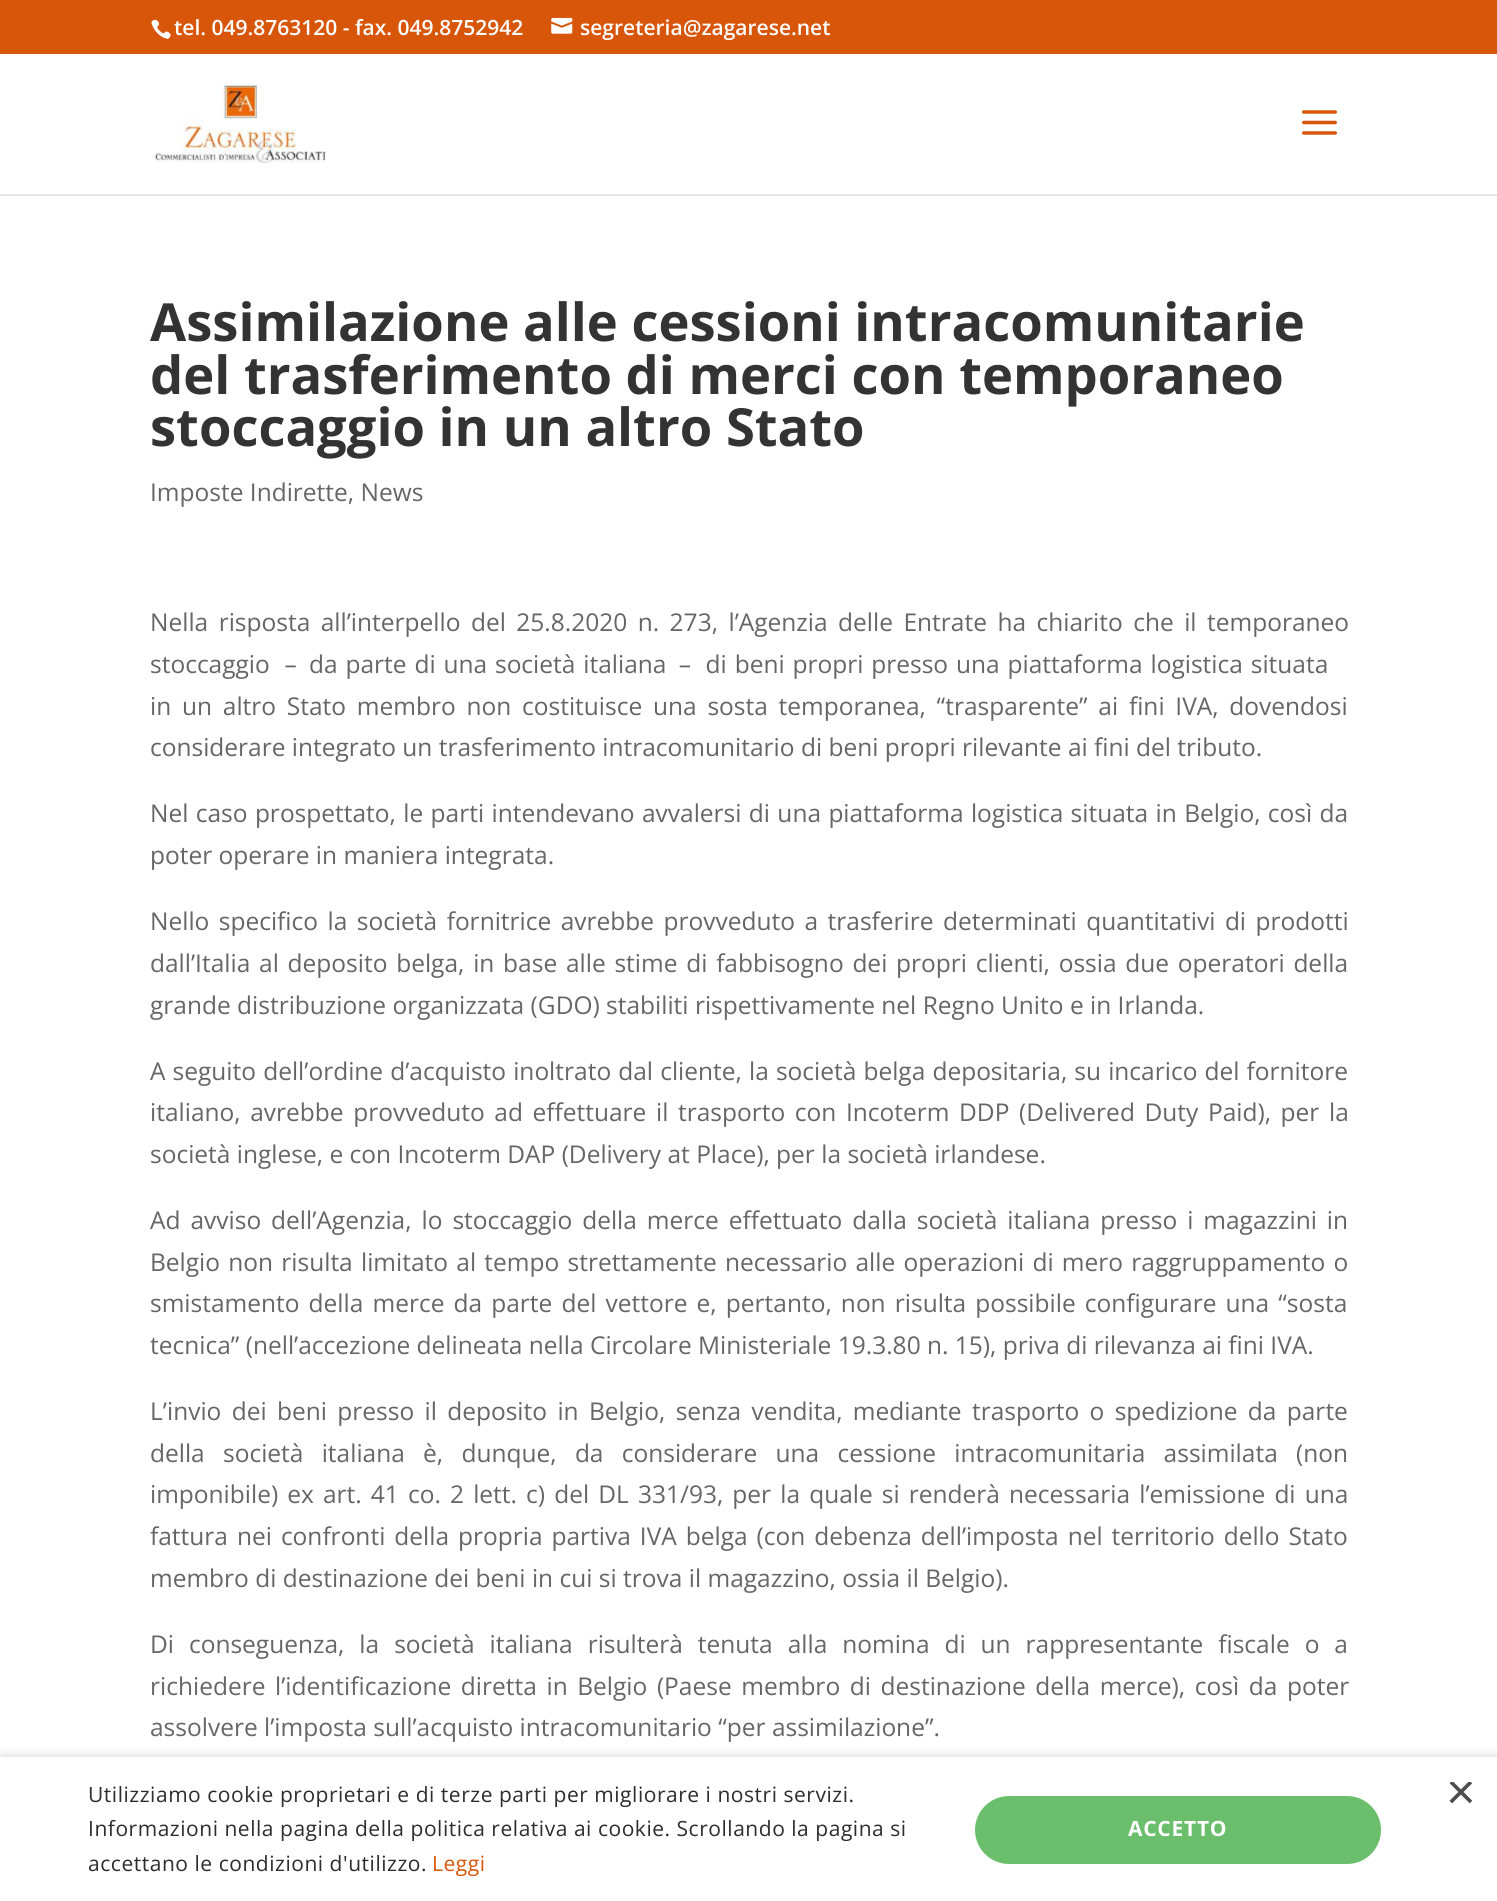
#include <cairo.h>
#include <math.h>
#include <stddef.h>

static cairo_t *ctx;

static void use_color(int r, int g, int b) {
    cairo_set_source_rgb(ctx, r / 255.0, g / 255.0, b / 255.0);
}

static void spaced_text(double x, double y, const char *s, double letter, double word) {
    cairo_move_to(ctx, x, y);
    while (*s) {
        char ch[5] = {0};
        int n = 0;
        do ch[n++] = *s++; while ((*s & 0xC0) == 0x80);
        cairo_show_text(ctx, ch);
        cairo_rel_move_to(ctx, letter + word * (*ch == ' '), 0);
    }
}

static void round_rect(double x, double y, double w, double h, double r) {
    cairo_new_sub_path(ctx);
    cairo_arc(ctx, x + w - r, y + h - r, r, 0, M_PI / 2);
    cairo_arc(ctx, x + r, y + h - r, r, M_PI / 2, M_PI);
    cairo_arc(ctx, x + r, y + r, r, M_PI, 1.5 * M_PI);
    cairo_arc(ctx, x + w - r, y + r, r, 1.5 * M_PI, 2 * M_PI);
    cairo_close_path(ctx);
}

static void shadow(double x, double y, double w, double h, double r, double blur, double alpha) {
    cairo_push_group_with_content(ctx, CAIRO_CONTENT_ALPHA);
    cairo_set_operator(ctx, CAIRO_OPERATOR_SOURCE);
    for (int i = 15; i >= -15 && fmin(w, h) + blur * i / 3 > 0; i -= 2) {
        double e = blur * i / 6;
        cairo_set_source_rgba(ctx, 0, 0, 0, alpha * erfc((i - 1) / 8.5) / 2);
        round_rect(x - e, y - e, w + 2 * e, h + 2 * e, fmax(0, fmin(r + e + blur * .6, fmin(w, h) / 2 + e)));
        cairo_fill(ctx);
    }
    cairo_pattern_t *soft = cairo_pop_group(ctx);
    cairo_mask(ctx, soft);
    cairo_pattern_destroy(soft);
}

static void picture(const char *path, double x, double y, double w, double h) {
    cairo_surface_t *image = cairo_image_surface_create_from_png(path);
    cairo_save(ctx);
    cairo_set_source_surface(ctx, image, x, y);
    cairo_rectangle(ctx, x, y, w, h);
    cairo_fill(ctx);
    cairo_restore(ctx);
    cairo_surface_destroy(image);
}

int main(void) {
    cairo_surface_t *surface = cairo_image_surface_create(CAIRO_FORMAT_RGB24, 1497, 1901);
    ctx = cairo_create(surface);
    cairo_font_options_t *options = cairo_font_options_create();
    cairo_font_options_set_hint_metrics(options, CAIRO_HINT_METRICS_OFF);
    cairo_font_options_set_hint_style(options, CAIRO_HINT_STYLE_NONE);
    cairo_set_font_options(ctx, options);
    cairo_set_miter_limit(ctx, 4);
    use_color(216, 86, 10);
    cairo_paint(ctx);
    picture("img1.png", 151, 19, 20, 20);
    cairo_select_font_face(ctx, "Open Sans SemiBold", CAIRO_FONT_SLANT_NORMAL, CAIRO_FONT_WEIGHT_NORMAL);
    cairo_set_font_size(ctx, 21);
    use_color(255, 255, 255);
    cairo_move_to(ctx, 174, 35);
    cairo_show_text(ctx, "tel. 049.8763120 - fax. 049.8752942");
    picture("img2.png", 551, 17, 22, 17);
    cairo_move_to(ctx, 580, 35);
    cairo_show_text(ctx, "segreteria@zagarese.net");
    use_color(230, 230, 230);
    cairo_rectangle(ctx, 0, 194, 1497, 2);
    cairo_fill(ctx);
    use_color(255, 255, 255);
    cairo_rectangle(ctx, 0, 54, 1497, 140);
    cairo_fill(ctx);
    picture("img3.png", 155, 85, 171, 78);
    picture("img4.png", 1302, 110, 35, 25);
    cairo_rectangle(ctx, 0, 196, 1497, 1561);
    cairo_fill(ctx);
    cairo_select_font_face(ctx, "Open Sans", CAIRO_FONT_SLANT_NORMAL, CAIRO_FONT_WEIGHT_BOLD);
    cairo_set_font_size(ctx, 52.5);
    use_color(51, 51, 51);
    cairo_move_to(ctx, 150, 341);
    cairo_show_text(ctx, "Assimilazione alle cessioni intracomunitarie");
    cairo_move_to(ctx, 150, 394);
    cairo_show_text(ctx, "del trasferimento di merci con temporaneo");
    cairo_move_to(ctx, 150, 446);
    cairo_show_text(ctx, "stoccaggio in un altro Stato");
    cairo_select_font_face(ctx, "Open Sans", CAIRO_FONT_SLANT_NORMAL, CAIRO_FONT_WEIGHT_NORMAL);
    cairo_set_font_size(ctx, 24.5);
    use_color(102, 102, 102);
    cairo_move_to(ctx, 150, 501);
    cairo_show_text(ctx, "Imposte Indirette, News");
    spaced_text(150, 631, "Nella risposta all’interpello del 25.8.2020 n. 273, l’Agenzia delle Entrate ha chiarito che il temporaneo", 0, 4.1);
    spaced_text(150, 673, "stoccaggio – da parte di una società italiana – di beni propri presso una piattaforma logistica situata", 0, 1.5);
    spaced_text(150, 715, "in un altro Stato membro non costituisce una sosta temporanea, “trasparente” ai fini IVA, dovendosi", 0, 4.4);
    cairo_move_to(ctx, 150, 756);
    cairo_show_text(ctx, "considerare integrato un trasferimento intracomunitario di beni propri rilevante ai fini del tributo.");
    spaced_text(150, 822, "Nel caso prospettato, le parti intendevano avvalersi di una piattaforma logistica situata in Belgio, così da", 0, 1);
    cairo_move_to(ctx, 150, 864);
    cairo_show_text(ctx, "poter operare in maniera integrata.");
    spaced_text(150, 930, "Nello specifico la società fornitrice avrebbe provveduto a trasferire determinati quantitativi di prodotti", 0, 3.1);
    spaced_text(150, 972, "dall’Italia al deposito belga, in base alle stime di fabbisogno dei propri clienti, ossia due operatori della", 0, 2.4);
    cairo_move_to(ctx, 150, 1014);
    cairo_show_text(ctx, "grande distribuzione organizzata (GDO) stabiliti rispettivamente nel Regno Unito e in Irlanda.");
    spaced_text(150, 1080, "A seguito dell’ordine d’acquisto inoltrato dal cliente, la società belga depositaria, su incarico del fornitore", 0, 0.75);
    spaced_text(150, 1121, "italiano, avrebbe provveduto ad effettuare il trasporto con Incoterm DDP (Delivered Duty Paid), per la", 0, 3.25);
    cairo_move_to(ctx, 150, 1163);
    cairo_show_text(ctx, "società inglese, e con Incoterm DAP (Delivery at Place), per la società irlandese.");
    spaced_text(150, 1229, "Ad avviso dell’Agenzia, lo stoccaggio della merce effettuato dalla società italiana presso i magazzini in", 0, 3.6);
    spaced_text(150, 1271, "Belgio non risulta limitato al tempo strettamente necessario alle operazioni di mero raggruppamento o", 0, 1.9);
    spaced_text(150, 1312, "smistamento della merce da parte del vettore e, pertanto, non risulta possibile configurare una “sosta", 0, 2.75);
    cairo_move_to(ctx, 150, 1354);
    cairo_show_text(ctx, "tecnica” (nell’accezione delineata nella Circolare Ministeriale 19.3.80 n. 15), priva di rilevanza ai fini IVA.");
    spaced_text(150, 1420, "L’invio dei beni presso il deposito in Belgio, senza vendita, mediante trasporto o spedizione da parte", 0, 4);
    spaced_text(150, 1462, "della società italiana è, dunque, da considerare una cessione intracomunitaria assimilata (non", 0, 11.9);
    spaced_text(150, 1503, "imponibile) ex art. 41 co. 2 lett. c) del DL 331/93, per la quale si renderà necessaria l’emissione di una", 0, 2.75);
    spaced_text(150, 1545, "fattura nei confronti della propria partiva IVA belga (con debenza dell’imposta nel territorio dello Stato", 0, 2.6);
    cairo_move_to(ctx, 150, 1587);
    cairo_show_text(ctx, "membro di destinazione dei beni in cui si trova il magazzino, ossia il Belgio).");
    spaced_text(150, 1653, "Di conseguenza, la società italiana risulterà tenuta alla nomina di un rappresentante fiscale o a", 0, 8.6);
    spaced_text(150, 1695, "richiedere l’identificazione diretta in Belgio (Paese membro di destinazione della merce), così da poter", 0, 3.25);
    cairo_move_to(ctx, 150, 1736);
    cairo_show_text(ctx, "assolvere l’imposta sull’acquisto intracomunitario “per assimilazione”.");
    use_color(0, 0, 0);
    shadow(2, 1761, 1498, 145, 0, 7, 0.35);
    use_color(255, 255, 255);
    cairo_rectangle(ctx, 0, 1757, 1497, 144);
    cairo_fill(ctx);
    cairo_set_font_size(ctx, 21);
    use_color(45, 45, 45);
    spaced_text(88, 1802, "Utilizziamo cookie proprietari e di terze parti per migliorare i nostri servizi.", 0.53, 0);
    spaced_text(88, 1836, "Informazioni nella pagina della politica relativa ai cookie. Scrollando la pagina si", 0.53, 0);
    spaced_text(88, 1871, "accettano le condizioni d'utilizzo.", 0.53, 0);
    use_color(216, 86, 10);
    spaced_text(432, 1871, "Leggi", 0.53, 0);
    use_color(107, 190, 107);
    round_rect(975, 1796, 406, 68, 34);
    cairo_fill(ctx);
    cairo_select_font_face(ctx, "Open Sans", CAIRO_FONT_SLANT_NORMAL, CAIRO_FONT_WEIGHT_BOLD);
    use_color(255, 255, 255);
    spaced_text(1128, 1836, "ACCETTO", 0.75, 0);
    cairo_save(ctx);
    cairo_rectangle(ctx, 1446, 1782, 26, 26);
    cairo_clip(ctx);
    cairo_select_font_face(ctx, "Liberation Sans", CAIRO_FONT_SLANT_NORMAL, CAIRO_FONT_WEIGHT_NORMAL);
    cairo_set_font_size(ctx, 51);
    use_color(77, 77, 77);
    cairo_move_to(ctx, 1446, 1809);
    cairo_show_text(ctx, "×");
    cairo_restore(ctx);
    cairo_surface_write_to_png(surface, "result.png");
    cairo_font_options_destroy(options);
    cairo_destroy(ctx);
    cairo_surface_destroy(surface);
    return 0;
}
